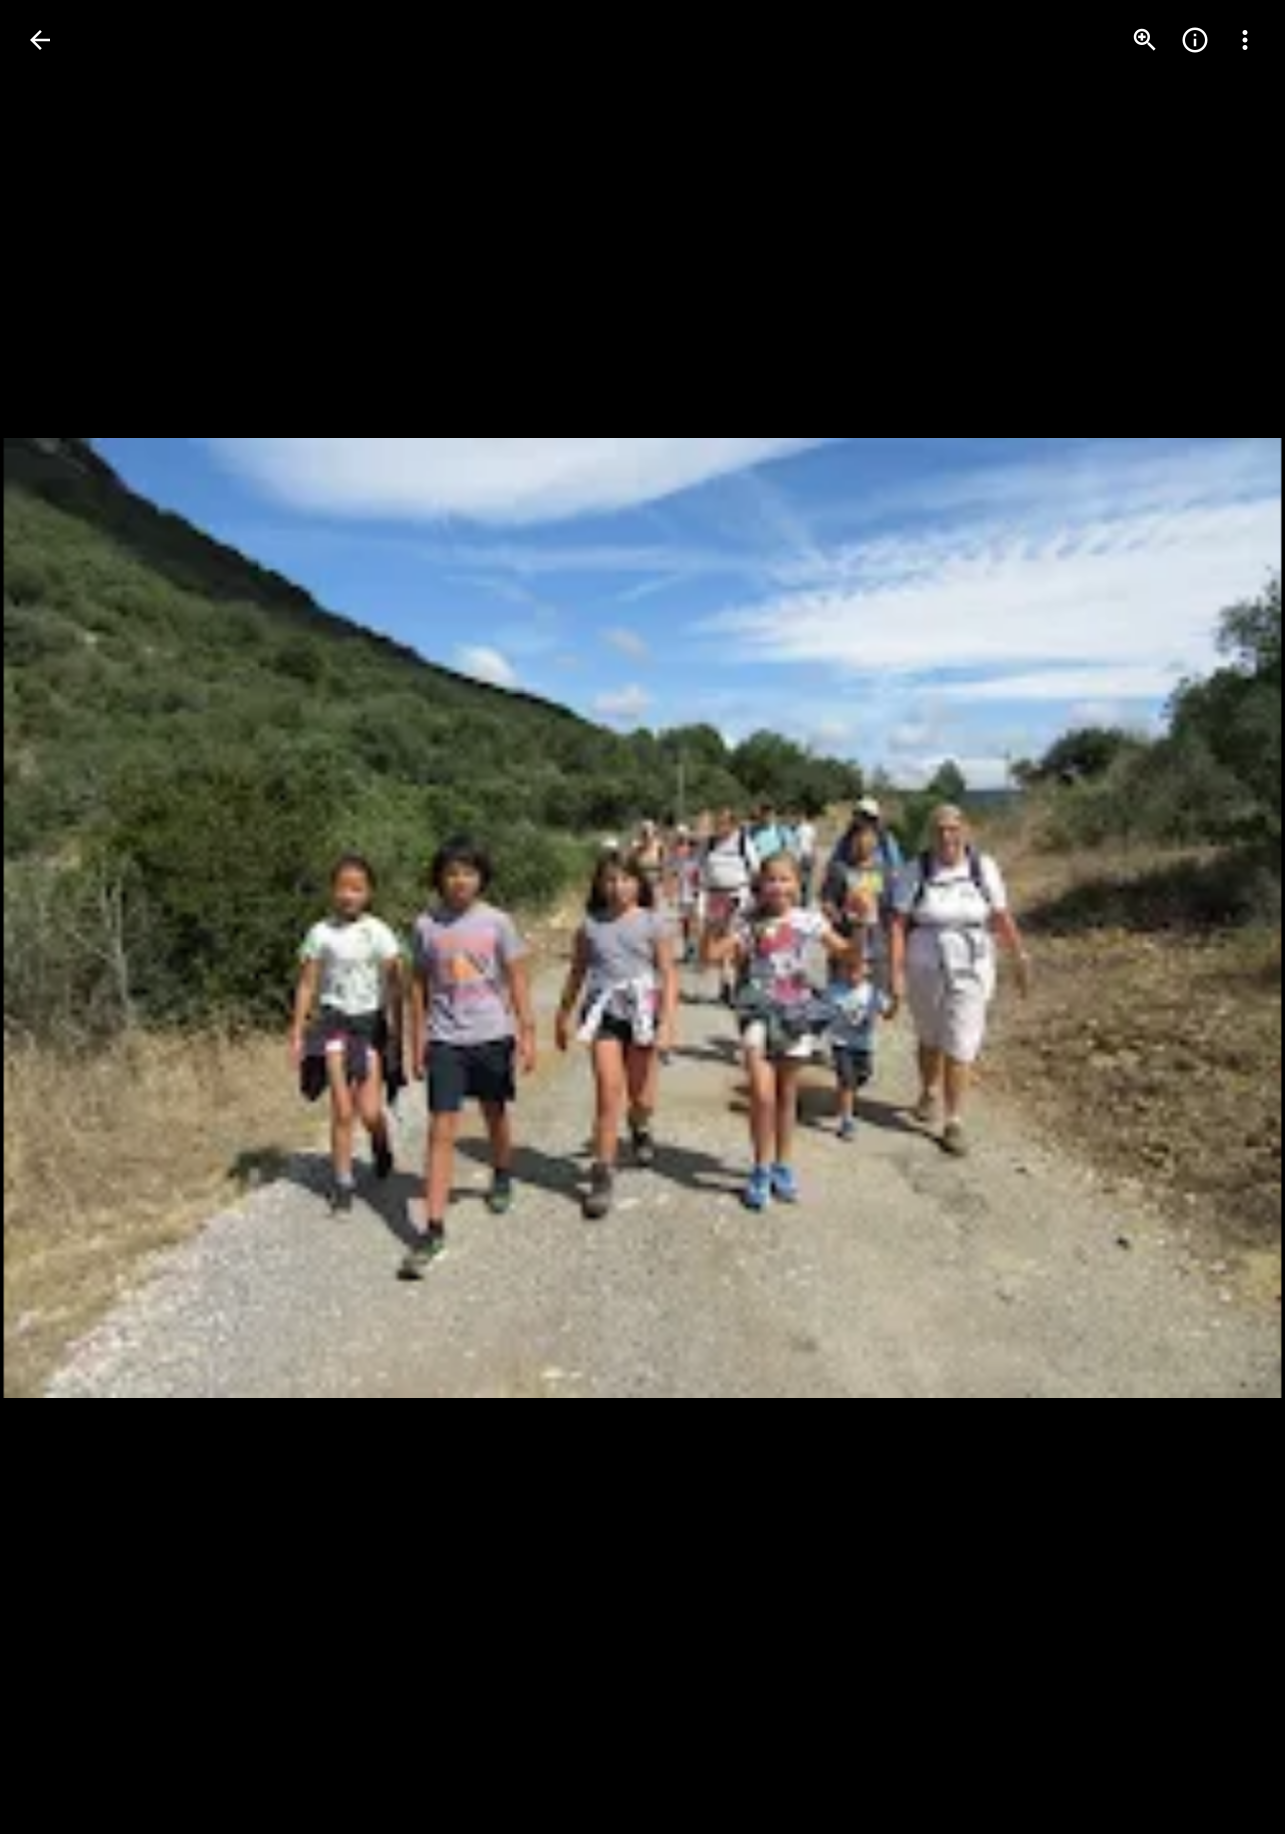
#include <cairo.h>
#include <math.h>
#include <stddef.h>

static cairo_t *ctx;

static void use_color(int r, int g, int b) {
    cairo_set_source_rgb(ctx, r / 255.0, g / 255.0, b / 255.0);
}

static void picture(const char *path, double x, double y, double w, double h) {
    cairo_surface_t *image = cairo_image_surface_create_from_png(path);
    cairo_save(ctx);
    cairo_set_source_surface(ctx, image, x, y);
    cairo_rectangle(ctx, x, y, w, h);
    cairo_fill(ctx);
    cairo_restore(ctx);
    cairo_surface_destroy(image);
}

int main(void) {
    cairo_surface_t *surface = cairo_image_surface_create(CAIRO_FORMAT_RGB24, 1285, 1834);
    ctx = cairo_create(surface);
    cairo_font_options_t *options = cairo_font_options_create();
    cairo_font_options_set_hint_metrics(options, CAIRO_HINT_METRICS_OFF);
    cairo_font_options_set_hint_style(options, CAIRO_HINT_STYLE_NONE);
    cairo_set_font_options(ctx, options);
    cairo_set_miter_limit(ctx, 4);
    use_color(0, 0, 0);
    cairo_paint(ctx);
    picture("img1.png", 30, 30, 20, 20);
    picture("img2.png", 1133, 28, 23, 23);
    picture("img3.png", 1182, 27, 26, 26);
    picture("img4.png", 1242, 30, 6, 20);
    picture("img5.png", 3, 438, 1279, 960);
    cairo_surface_write_to_png(surface, "result.png");
    cairo_font_options_destroy(options);
    cairo_destroy(ctx);
    cairo_surface_destroy(surface);
    return 0;
}
